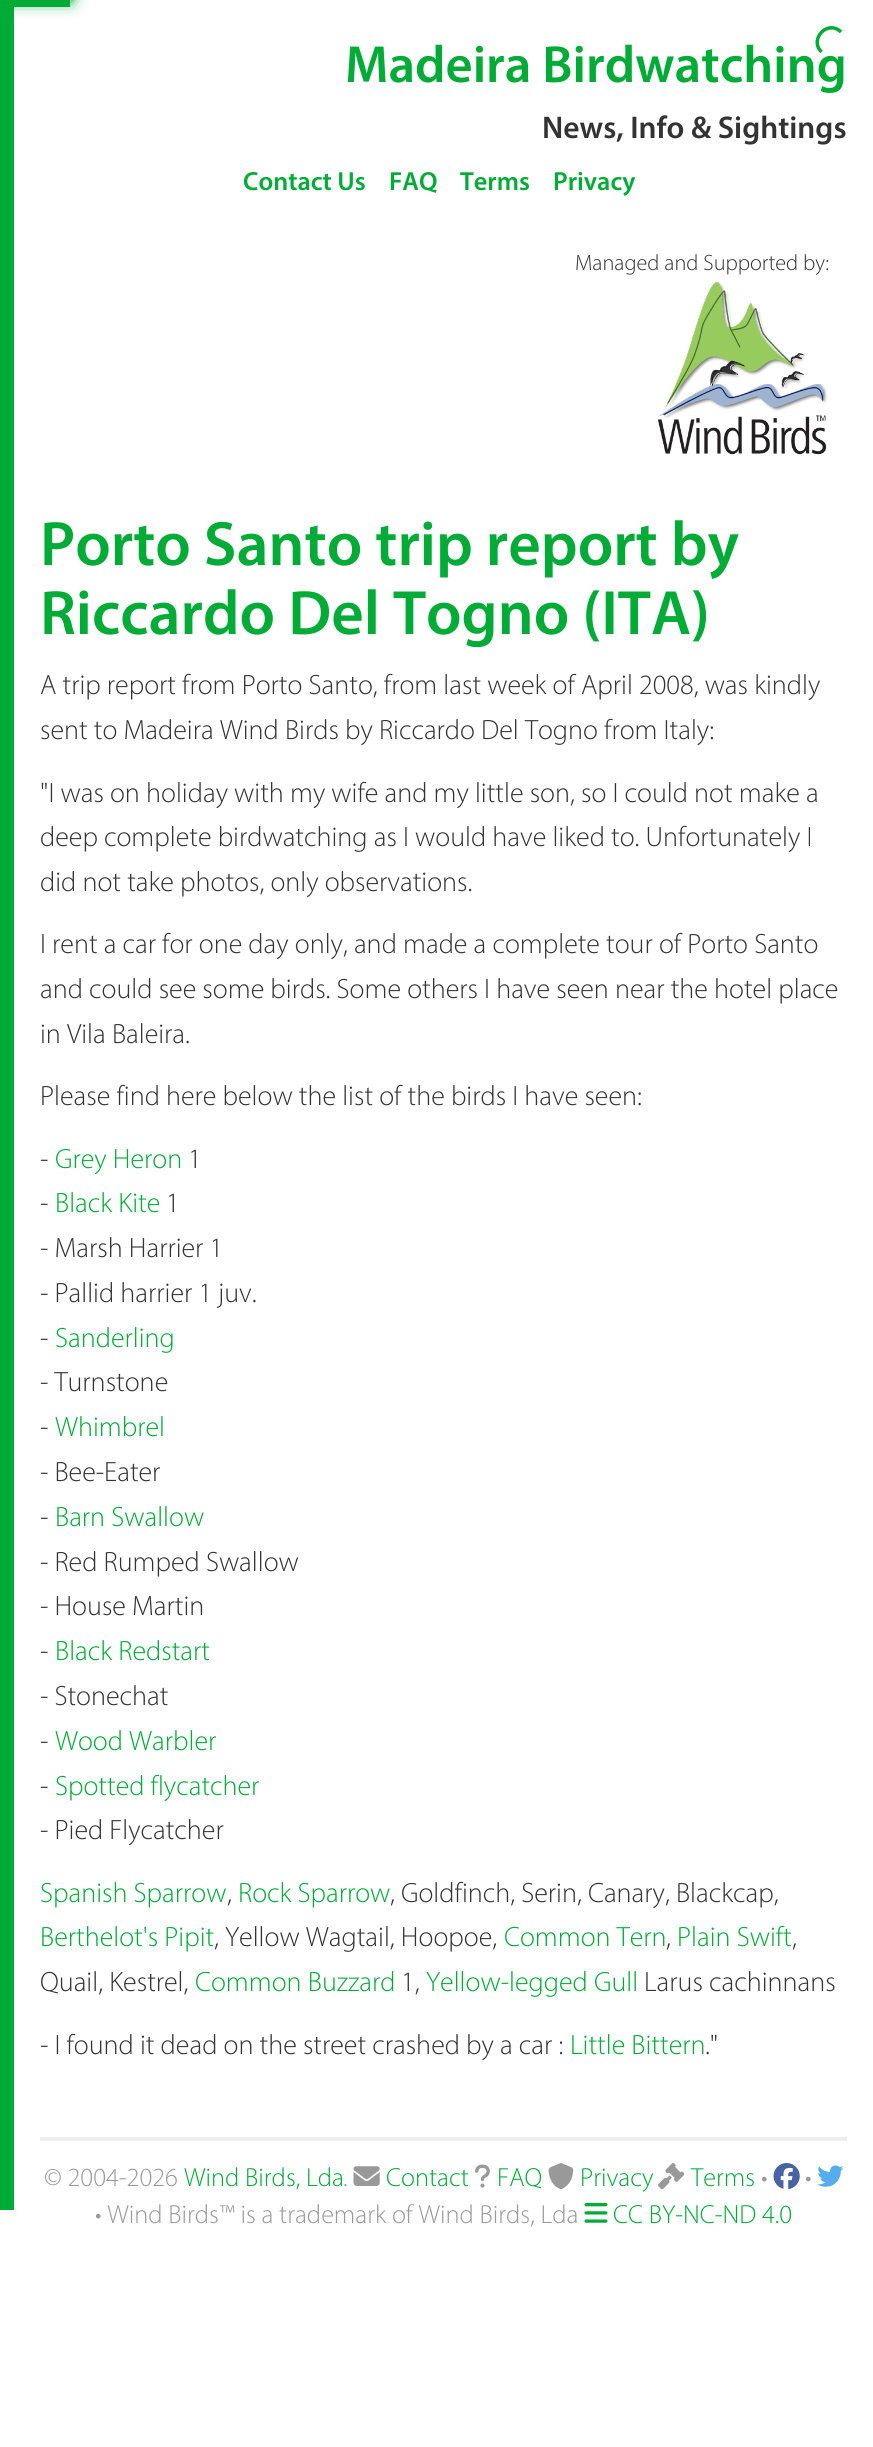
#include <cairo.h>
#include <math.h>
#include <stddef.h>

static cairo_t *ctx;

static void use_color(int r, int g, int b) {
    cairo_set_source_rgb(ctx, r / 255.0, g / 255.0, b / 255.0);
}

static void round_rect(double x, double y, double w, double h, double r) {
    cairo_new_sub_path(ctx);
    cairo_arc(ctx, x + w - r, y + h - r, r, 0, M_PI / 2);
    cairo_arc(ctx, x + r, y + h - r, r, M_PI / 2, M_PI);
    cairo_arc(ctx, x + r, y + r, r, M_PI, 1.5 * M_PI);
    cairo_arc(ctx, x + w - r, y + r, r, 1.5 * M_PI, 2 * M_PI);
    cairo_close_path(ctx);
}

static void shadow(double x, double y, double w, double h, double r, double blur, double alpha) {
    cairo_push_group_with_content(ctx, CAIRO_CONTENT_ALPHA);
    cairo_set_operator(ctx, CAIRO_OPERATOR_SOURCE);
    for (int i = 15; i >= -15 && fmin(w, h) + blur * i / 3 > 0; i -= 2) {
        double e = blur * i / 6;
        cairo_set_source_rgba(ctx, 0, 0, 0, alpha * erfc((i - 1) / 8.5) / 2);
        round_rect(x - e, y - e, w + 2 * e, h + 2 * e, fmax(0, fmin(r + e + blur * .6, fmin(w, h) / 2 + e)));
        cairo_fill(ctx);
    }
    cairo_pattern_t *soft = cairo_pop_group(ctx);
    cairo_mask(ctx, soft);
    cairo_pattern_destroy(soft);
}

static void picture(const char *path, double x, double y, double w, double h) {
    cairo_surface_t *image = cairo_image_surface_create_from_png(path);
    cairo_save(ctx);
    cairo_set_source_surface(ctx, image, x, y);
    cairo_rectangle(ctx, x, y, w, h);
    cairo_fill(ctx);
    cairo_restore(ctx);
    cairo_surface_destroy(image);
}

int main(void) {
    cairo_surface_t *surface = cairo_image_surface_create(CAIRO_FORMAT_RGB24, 873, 2447);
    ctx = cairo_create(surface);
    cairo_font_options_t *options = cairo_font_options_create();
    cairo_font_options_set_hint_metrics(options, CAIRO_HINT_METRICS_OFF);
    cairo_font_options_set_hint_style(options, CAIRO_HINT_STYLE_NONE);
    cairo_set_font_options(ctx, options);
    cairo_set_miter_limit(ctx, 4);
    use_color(255, 255, 255);
    cairo_paint(ctx);
    use_color(0, 172, 54);
    cairo_rectangle(ctx, 0, 7, 14, 2203);
    cairo_fill(ctx);
    cairo_rectangle(ctx, 0, 0, 70, 7);
    cairo_fill(ctx);
    cairo_save(ctx);
    cairo_set_fill_rule(ctx, CAIRO_FILL_RULE_EVEN_ODD);
    cairo_new_path(ctx);
    cairo_move_to(ctx, 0, 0);
    cairo_line_to(ctx, 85, 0);
    cairo_line_to(ctx, 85, 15);
    cairo_line_to(ctx, 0, 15);
    cairo_close_path(ctx);
    cairo_move_to(ctx, -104.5, -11.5);
    cairo_line_to(ctx, 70.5, -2.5);
    cairo_line_to(ctx, 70, 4.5);
    cairo_line_to(ctx, -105, -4.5);
    cairo_close_path(ctx);
    cairo_clip(ctx);
    use_color(0, 172, 54);
    shadow(-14, -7, 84, 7, 0, 4.5, 1);
    cairo_restore(ctx);
    cairo_save(ctx);
    cairo_set_fill_rule(ctx, CAIRO_FILL_RULE_EVEN_ODD);
    cairo_new_path(ctx);
    cairo_move_to(ctx, 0, 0);
    cairo_line_to(ctx, 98, 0);
    cairo_line_to(ctx, 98, 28);
    cairo_line_to(ctx, 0, 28);
    cairo_close_path(ctx);
    cairo_move_to(ctx, -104.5, -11.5);
    cairo_line_to(ctx, 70.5, -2.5);
    cairo_line_to(ctx, 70, 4.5);
    cairo_line_to(ctx, -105, -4.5);
    cairo_close_path(ctx);
    cairo_clip(ctx);
    use_color(0, 172, 54);
    shadow(-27, -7, 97, 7, 0, 9, 1);
    cairo_restore(ctx);
    cairo_new_path(ctx);
    cairo_move_to(ctx, 821.5, 52);
    cairo_curve_to(ctx, 808.5, 39, 828, 19, 841, 32);
    cairo_set_line_width(ctx, 3.5);
    cairo_stroke(ctx);
    cairo_select_font_face(ctx, "Myriad SemiBold", CAIRO_FONT_SLANT_NORMAL, CAIRO_FONT_WEIGHT_NORMAL);
    cairo_set_font_size(ctx, 52.5);
    cairo_move_to(ctx, 345, 82);
    cairo_show_text(ctx, "Madeira Birdwatching");
    cairo_set_font_size(ctx, 31.5);
    use_color(51, 51, 51);
    cairo_move_to(ctx, 542, 138);
    cairo_show_text(ctx, "News, Info & Sightings");
    cairo_set_font_size(ctx, 26.25);
    use_color(0, 172, 54);
    cairo_move_to(ctx, 243, 190);
    cairo_show_text(ctx, "Contact Us");
    cairo_move_to(ctx, 389, 190);
    cairo_show_text(ctx, "FAQ");
    cairo_move_to(ctx, 460, 190);
    cairo_show_text(ctx, "Terms");
    cairo_move_to(ctx, 553, 190);
    cairo_show_text(ctx, "Privacy");
    cairo_select_font_face(ctx, "Myriad Light", CAIRO_FONT_SLANT_NORMAL, CAIRO_FONT_WEIGHT_NORMAL);
    cairo_set_font_size(ctx, 22.25);
    use_color(51, 51, 51);
    cairo_move_to(ctx, 575, 270);
    cairo_show_text(ctx, "Managed and Supported by:");
    picture("img1.png", 657, 282, 171, 173);
    cairo_select_font_face(ctx, "Myriad SemiBold", CAIRO_FONT_SLANT_NORMAL, CAIRO_FONT_WEIGHT_NORMAL);
    cairo_set_font_size(ctx, 63);
    use_color(0, 172, 54);
    cairo_move_to(ctx, 40, 565);
    cairo_show_text(ctx, "Porto Santo trip report by");
    cairo_move_to(ctx, 40, 634);
    cairo_show_text(ctx, "Riccardo Del Togno (ITA)");
    cairo_select_font_face(ctx, "Myriad Light", CAIRO_FONT_SLANT_NORMAL, CAIRO_FONT_WEIGHT_NORMAL);
    cairo_set_font_size(ctx, 28);
    use_color(51, 51, 51);
    cairo_move_to(ctx, 40, 694);
    cairo_show_text(ctx, "A trip report from Porto Santo, from last week of April 2008, was kindly");
    cairo_move_to(ctx, 40, 739);
    cairo_show_text(ctx, "sent to Madeira Wind Birds by Riccardo Del Togno from Italy:");
    cairo_move_to(ctx, 40, 802);
    cairo_show_text(ctx, "\"I was on holiday with my wife and my little son, so I could not make a");
    cairo_move_to(ctx, 40, 846);
    cairo_show_text(ctx, "deep complete birdwatching as I would have liked to. Unfortunately I");
    cairo_move_to(ctx, 40, 891);
    cairo_show_text(ctx, "did not take photos, only observations.");
    cairo_move_to(ctx, 40, 953);
    cairo_show_text(ctx, "I rent a car for one day only, and made a complete tour of Porto Santo");
    cairo_move_to(ctx, 40, 998);
    cairo_show_text(ctx, "and could see some birds. Some others I have seen near the hotel place");
    cairo_move_to(ctx, 40, 1043);
    cairo_show_text(ctx, "in Vila Baleira.");
    cairo_move_to(ctx, 40, 1105);
    cairo_show_text(ctx, "Please find here below the list of the birds I have seen:");
    cairo_move_to(ctx, 40, 1168);
    cairo_show_text(ctx, "-");
    use_color(0, 172, 54);
    cairo_move_to(ctx, 55, 1168);
    cairo_show_text(ctx, "Grey Heron");
    use_color(51, 51, 51);
    cairo_move_to(ctx, 188, 1168);
    cairo_show_text(ctx, "1");
    cairo_move_to(ctx, 40, 1212);
    cairo_show_text(ctx, "-");
    use_color(0, 172, 54);
    cairo_move_to(ctx, 55, 1212);
    cairo_show_text(ctx, "Black Kite");
    use_color(51, 51, 51);
    cairo_move_to(ctx, 166, 1212);
    cairo_show_text(ctx, "1");
    cairo_move_to(ctx, 40, 1257);
    cairo_show_text(ctx, "- Marsh Harrier 1");
    cairo_move_to(ctx, 40, 1302);
    cairo_show_text(ctx, "- Pallid harrier 1 juv.");
    cairo_move_to(ctx, 40, 1347);
    cairo_show_text(ctx, "-");
    use_color(0, 172, 54);
    cairo_move_to(ctx, 55, 1347);
    cairo_show_text(ctx, "Sanderling");
    use_color(51, 51, 51);
    cairo_move_to(ctx, 40, 1391);
    cairo_show_text(ctx, "- Turnstone");
    cairo_move_to(ctx, 40, 1436);
    cairo_show_text(ctx, "-");
    use_color(0, 172, 54);
    cairo_move_to(ctx, 55, 1436);
    cairo_show_text(ctx, "Whimbrel");
    use_color(51, 51, 51);
    cairo_move_to(ctx, 40, 1481);
    cairo_show_text(ctx, "- Bee-Eater");
    cairo_move_to(ctx, 40, 1526);
    cairo_show_text(ctx, "-");
    use_color(0, 172, 54);
    cairo_move_to(ctx, 55, 1526);
    cairo_show_text(ctx, "Barn Swallow");
    use_color(51, 51, 51);
    cairo_move_to(ctx, 40, 1571);
    cairo_show_text(ctx, "- Red Rumped Swallow");
    cairo_move_to(ctx, 40, 1615);
    cairo_show_text(ctx, "- House Martin");
    cairo_move_to(ctx, 40, 1660);
    cairo_show_text(ctx, "-");
    use_color(0, 172, 54);
    cairo_move_to(ctx, 55, 1660);
    cairo_show_text(ctx, "Black Redstart");
    use_color(51, 51, 51);
    cairo_move_to(ctx, 40, 1705);
    cairo_show_text(ctx, "- Stonechat");
    cairo_move_to(ctx, 40, 1750);
    cairo_show_text(ctx, "-");
    use_color(0, 172, 54);
    cairo_move_to(ctx, 55, 1750);
    cairo_show_text(ctx, "Wood Warbler");
    use_color(51, 51, 51);
    cairo_move_to(ctx, 40, 1795);
    cairo_show_text(ctx, "-");
    use_color(0, 172, 54);
    cairo_move_to(ctx, 55, 1795);
    cairo_show_text(ctx, "Spotted flycatcher");
    use_color(51, 51, 51);
    cairo_move_to(ctx, 40, 1839);
    cairo_show_text(ctx, "- Pied Flycatcher");
    use_color(0, 172, 54);
    cairo_move_to(ctx, 40, 1902);
    cairo_show_text(ctx, "Spanish Sparrow");
    use_color(51, 51, 51);
    cairo_move_to(ctx, 227, 1902);
    cairo_show_text(ctx, ",");
    use_color(0, 172, 54);
    cairo_move_to(ctx, 238, 1902);
    cairo_show_text(ctx, "Rock Sparrow");
    use_color(51, 51, 51);
    cairo_move_to(ctx, 390, 1902);
    cairo_show_text(ctx, ", Goldfinch, Serin, Canary, Blackcap,");
    use_color(0, 172, 54);
    cairo_move_to(ctx, 40, 1946);
    cairo_show_text(ctx, "Berthelot's Pipit");
    use_color(51, 51, 51);
    cairo_move_to(ctx, 214, 1946);
    cairo_show_text(ctx, ", Yellow Wagtail, Hoopoe,");
    use_color(0, 172, 54);
    cairo_move_to(ctx, 504, 1946);
    cairo_show_text(ctx, "Common Tern");
    use_color(51, 51, 51);
    cairo_move_to(ctx, 666, 1946);
    cairo_show_text(ctx, ",");
    use_color(0, 172, 54);
    cairo_move_to(ctx, 677, 1946);
    cairo_show_text(ctx, "Plain Swift");
    use_color(51, 51, 51);
    cairo_move_to(ctx, 792, 1946);
    cairo_show_text(ctx, ",");
    cairo_move_to(ctx, 40, 1991);
    cairo_show_text(ctx, "Quail, Kestrel,");
    use_color(0, 172, 54);
    cairo_move_to(ctx, 195, 1991);
    cairo_show_text(ctx, "Common Buzzard");
    use_color(51, 51, 51);
    cairo_move_to(ctx, 401, 1991);
    cairo_show_text(ctx, "1,");
    use_color(0, 172, 54);
    cairo_move_to(ctx, 426, 1991);
    cairo_show_text(ctx, "Yellow-legged Gull");
    use_color(51, 51, 51);
    cairo_move_to(ctx, 644, 1991);
    cairo_show_text(ctx, "Larus cachinnans");
    cairo_move_to(ctx, 40, 2054);
    cairo_show_text(ctx, "- I found it dead on the street crashed by a car :");
    use_color(0, 172, 54);
    cairo_move_to(ctx, 570, 2054);
    cairo_show_text(ctx, "Little Bittern");
    use_color(51, 51, 51);
    cairo_move_to(ctx, 705, 2054);
    cairo_show_text(ctx, ".\"");
    use_color(238, 238, 238);
    cairo_rectangle(ctx, 40, 2137, 807, 4);
    cairo_fill(ctx);
    cairo_set_font_size(ctx, 26.25);
    use_color(153, 153, 153);
    cairo_move_to(ctx, 44, 2186);
    cairo_show_text(ctx, "© 2004-2026");
    use_color(0, 172, 54);
    cairo_move_to(ctx, 184, 2186);
    cairo_show_text(ctx, "Wind Birds, Lda");
    picture("img2.png", 353, 2166, 27, 20);
    cairo_move_to(ctx, 386, 2186);
    cairo_show_text(ctx, "Contact");
    picture("img3.png", 475, 2164, 15, 24);
    cairo_move_to(ctx, 497, 2186);
    cairo_show_text(ctx, "FAQ");
    picture("img4.png", 548, 2163, 26, 27);
    cairo_move_to(ctx, 580, 2186);
    cairo_show_text(ctx, "Privacy");
    picture("img5.png", 658, 2163, 27, 27);
    cairo_move_to(ctx, 691, 2186);
    cairo_show_text(ctx, "Terms");
    use_color(153, 153, 153);
    cairo_move_to(ctx, 761, 2186);
    cairo_show_text(ctx, "•");
    picture("img6.png", 773, 2163, 27, 27);
    cairo_move_to(ctx, 805, 2186);
    cairo_show_text(ctx, "•");
    picture("img7.png", 817, 2165, 27, 22);
    cairo_move_to(ctx, 343, 2186);
    cairo_show_text(ctx, ".");
    cairo_move_to(ctx, 95, 2223);
    cairo_show_text(ctx, "• Wind Birds™ is a trademark of Wind Birds, Lda");
    picture("img8.png", 584, 2203, 24, 20);
    use_color(0, 172, 54);
    cairo_move_to(ctx, 613, 2223);
    cairo_show_text(ctx, "CC BY-NC-ND 4.0");
    cairo_surface_write_to_png(surface, "result.png");
    cairo_font_options_destroy(options);
    cairo_destroy(ctx);
    cairo_surface_destroy(surface);
    return 0;
}
